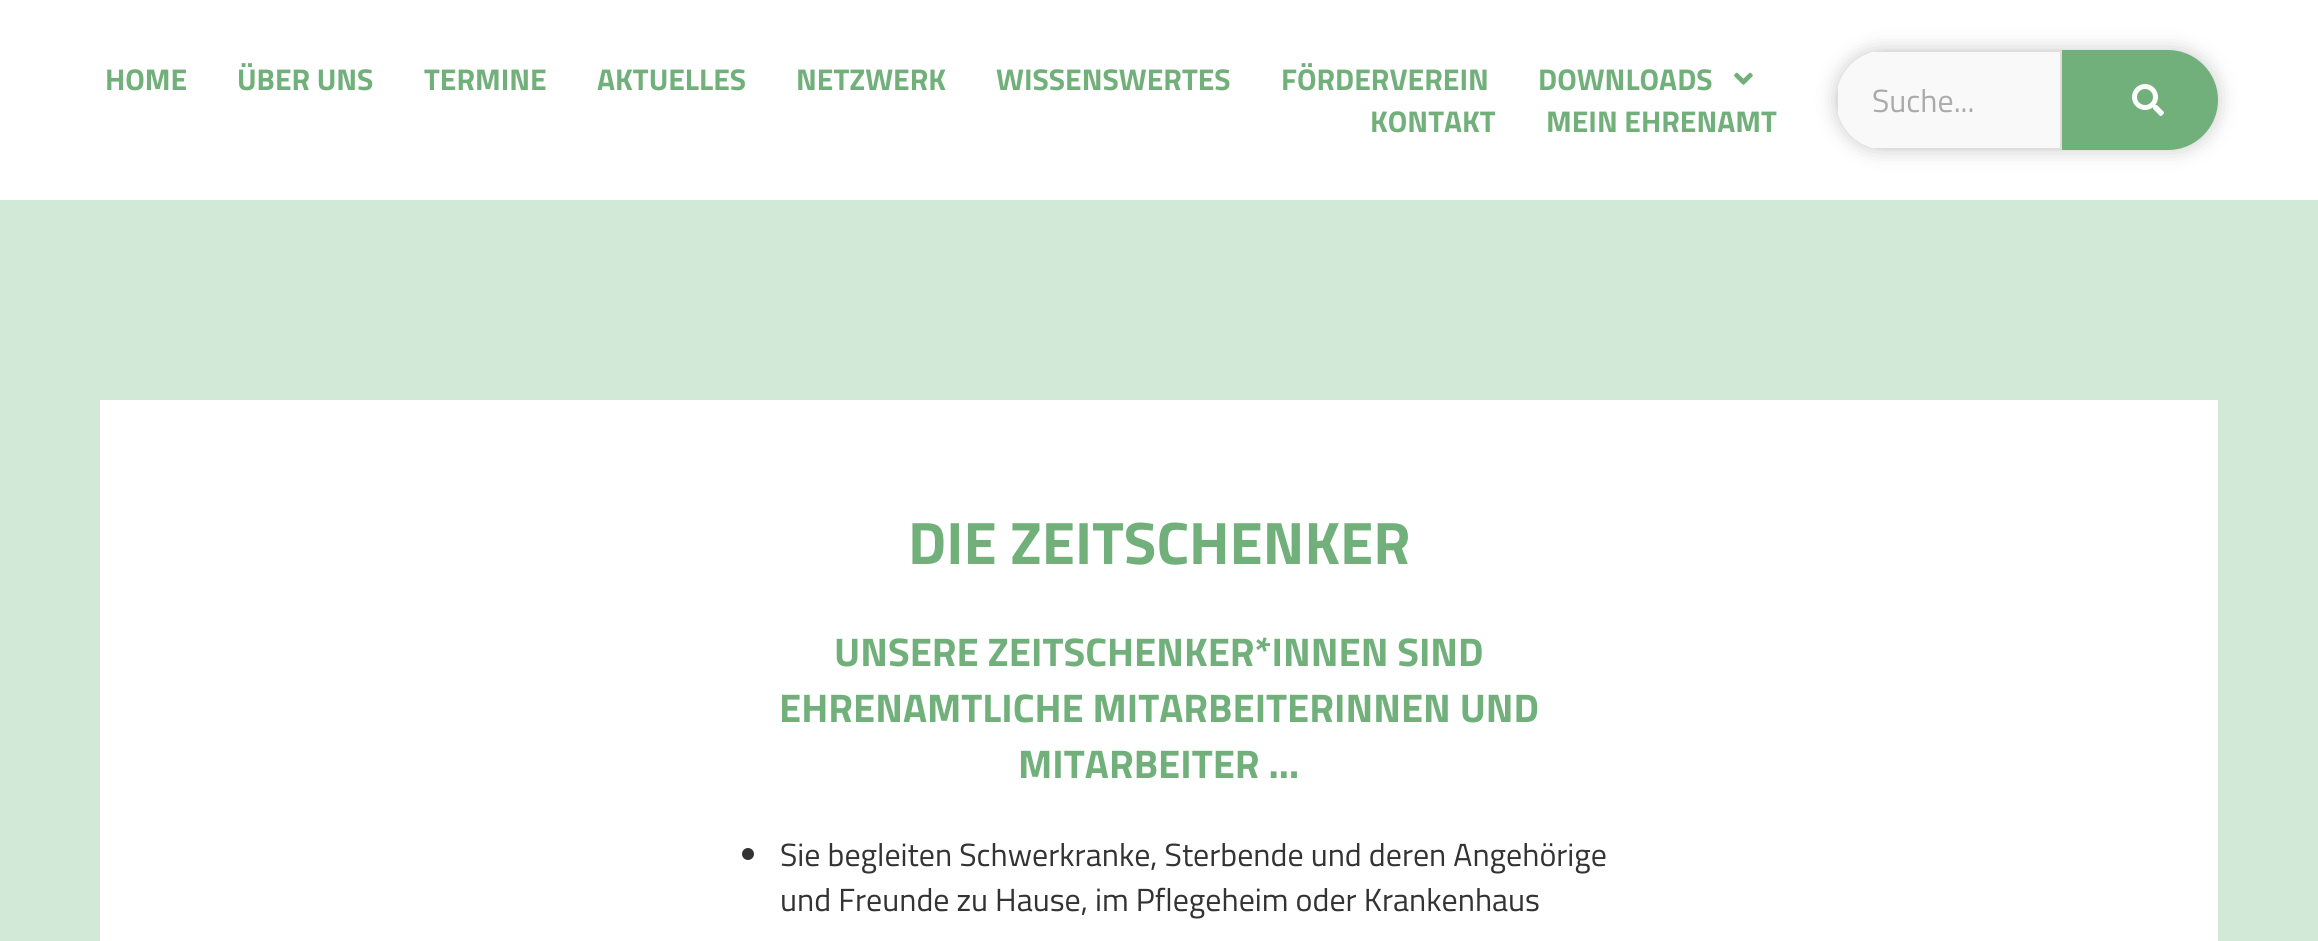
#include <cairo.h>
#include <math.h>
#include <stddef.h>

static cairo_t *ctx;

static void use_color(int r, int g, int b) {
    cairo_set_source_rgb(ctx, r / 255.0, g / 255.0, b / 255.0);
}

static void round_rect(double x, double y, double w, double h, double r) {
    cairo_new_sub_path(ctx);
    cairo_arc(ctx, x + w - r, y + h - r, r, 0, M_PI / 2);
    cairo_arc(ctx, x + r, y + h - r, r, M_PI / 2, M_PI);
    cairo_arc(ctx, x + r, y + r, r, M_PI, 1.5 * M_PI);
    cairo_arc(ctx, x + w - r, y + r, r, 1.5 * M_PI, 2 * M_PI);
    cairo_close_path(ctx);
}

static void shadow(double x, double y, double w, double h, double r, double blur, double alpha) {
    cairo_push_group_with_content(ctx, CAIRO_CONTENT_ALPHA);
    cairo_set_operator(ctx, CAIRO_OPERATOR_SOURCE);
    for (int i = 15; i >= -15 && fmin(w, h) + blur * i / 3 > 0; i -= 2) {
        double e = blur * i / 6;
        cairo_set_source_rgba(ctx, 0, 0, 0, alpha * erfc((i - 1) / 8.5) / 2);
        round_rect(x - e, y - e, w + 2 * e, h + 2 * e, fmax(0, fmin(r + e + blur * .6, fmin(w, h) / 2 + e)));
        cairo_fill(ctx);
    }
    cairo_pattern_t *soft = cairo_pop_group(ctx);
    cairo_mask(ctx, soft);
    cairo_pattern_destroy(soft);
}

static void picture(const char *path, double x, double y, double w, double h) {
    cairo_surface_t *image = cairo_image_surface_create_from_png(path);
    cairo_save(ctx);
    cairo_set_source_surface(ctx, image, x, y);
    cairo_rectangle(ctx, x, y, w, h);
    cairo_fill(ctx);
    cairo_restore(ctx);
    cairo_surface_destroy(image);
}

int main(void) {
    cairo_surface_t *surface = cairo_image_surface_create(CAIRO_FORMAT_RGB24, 2318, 941);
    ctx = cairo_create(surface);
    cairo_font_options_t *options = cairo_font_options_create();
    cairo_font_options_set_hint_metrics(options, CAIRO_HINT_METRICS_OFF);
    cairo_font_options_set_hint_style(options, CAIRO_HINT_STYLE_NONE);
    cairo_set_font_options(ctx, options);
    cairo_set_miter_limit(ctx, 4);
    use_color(255, 255, 255);
    cairo_paint(ctx);
    cairo_select_font_face(ctx, "Titillium Web", CAIRO_FONT_SLANT_NORMAL, CAIRO_FONT_WEIGHT_BOLD);
    cairo_set_font_size(ctx, 30);
    use_color(113, 176, 122);
    cairo_move_to(ctx, 105, 90);
    cairo_show_text(ctx, "HOME");
    cairo_move_to(ctx, 237, 90);
    cairo_show_text(ctx, "ÜBER UNS");
    cairo_move_to(ctx, 424, 90);
    cairo_show_text(ctx, "TERMINE");
    cairo_move_to(ctx, 597, 90);
    cairo_show_text(ctx, "AKTUELLES");
    cairo_move_to(ctx, 796, 90);
    cairo_show_text(ctx, "NETZWERK");
    cairo_move_to(ctx, 996, 90);
    cairo_show_text(ctx, "WISSENSWERTES");
    cairo_move_to(ctx, 1281, 90);
    cairo_show_text(ctx, "FÖRDERVEREIN");
    cairo_move_to(ctx, 1538, 90);
    cairo_show_text(ctx, "DOWNLOADS");
    picture("img1.png", 1734, 72, 19, 13);
    cairo_move_to(ctx, 1370, 132);
    cairo_show_text(ctx, "KONTAKT");
    cairo_move_to(ctx, 1546, 132);
    cairo_show_text(ctx, "MEIN EHRENAMT");
    use_color(0, 0, 0);
    shadow(1836, 50, 382, 100, 50, 10, 0.21);
    use_color(249, 249, 249);
    cairo_new_path(ctx);
    cairo_move_to(ctx, 1886, 50);
    cairo_line_to(ctx, 2062, 50);
    cairo_line_to(ctx, 2062, 150);
    cairo_line_to(ctx, 1886, 150);
    cairo_curve_to(ctx, 1858.5, 150, 1836, 127.5, 1836, 100);
    cairo_curve_to(ctx, 1836, 72.5, 1858.5, 50, 1886, 50);
    cairo_close_path(ctx);
    cairo_fill(ctx);
    use_color(221, 221, 221);
    cairo_set_fill_rule(ctx, CAIRO_FILL_RULE_EVEN_ODD);
    cairo_new_path(ctx);
    cairo_move_to(ctx, 1886, 50);
    cairo_curve_to(ctx, 1881, 50, 1876, 51, 1872, 52);
    cairo_line_to(ctx, 2060, 52);
    cairo_line_to(ctx, 2060, 148);
    cairo_line_to(ctx, 1872, 148);
    cairo_curve_to(ctx, 1876, 149, 1881, 150, 1886, 150);
    cairo_line_to(ctx, 2062, 150);
    cairo_line_to(ctx, 2062, 50);
    cairo_close_path(ctx);
    cairo_move_to(ctx, 1838, 114);
    cairo_curve_to(ctx, 1835, 105, 1835, 95, 1838, 86);
    cairo_close_path(ctx);
    cairo_fill(ctx);
    cairo_select_font_face(ctx, "Titillium Web", CAIRO_FONT_SLANT_NORMAL, CAIRO_FONT_WEIGHT_NORMAL);
    cairo_set_font_size(ctx, 32);
    use_color(171, 171, 171);
    cairo_move_to(ctx, 1872, 112);
    cairo_show_text(ctx, "Suche...");
    use_color(113, 176, 122);
    cairo_new_path(ctx);
    cairo_move_to(ctx, 2062, 50);
    cairo_line_to(ctx, 2168, 50);
    cairo_curve_to(ctx, 2195.5, 50, 2218, 72.5, 2218, 100);
    cairo_curve_to(ctx, 2218, 127.5, 2195.5, 150, 2168, 150);
    cairo_line_to(ctx, 2062, 150);
    cairo_close_path(ctx);
    cairo_fill(ctx);
    picture("img2.png", 2132, 84, 32, 32);
    use_color(209, 233, 214);
    cairo_rectangle(ctx, 0, 200, 2318, 741);
    cairo_fill(ctx);
    use_color(255, 255, 255);
    cairo_rectangle(ctx, 100, 400, 2118, 541);
    cairo_fill(ctx);
    cairo_select_font_face(ctx, "Titillium Web", CAIRO_FONT_SLANT_NORMAL, CAIRO_FONT_WEIGHT_BOLD);
    cairo_set_font_size(ctx, 60);
    use_color(113, 176, 122);
    cairo_move_to(ctx, 908, 564);
    cairo_show_text(ctx, "DIE ZEITSCHENKER");
    cairo_set_font_size(ctx, 40);
    cairo_move_to(ctx, 834, 666);
    cairo_show_text(ctx, "UNSERE ZEITSCHENKER*INNEN SIND");
    cairo_move_to(ctx, 779, 722);
    cairo_show_text(ctx, "EHRENAMTLICHE MITARBEITERINNEN UND");
    cairo_move_to(ctx, 1018, 778);
    cairo_show_text(ctx, "MITARBEITER …");
    use_color(51, 51, 51);
    cairo_new_path(ctx);
    cairo_arc(ctx, 748, 854, 6, 0, 2 * M_PI);
    cairo_fill(ctx);
    cairo_select_font_face(ctx, "Titillium Web", CAIRO_FONT_SLANT_NORMAL, CAIRO_FONT_WEIGHT_NORMAL);
    cairo_set_font_size(ctx, 32);
    cairo_move_to(ctx, 780, 866);
    cairo_show_text(ctx, "Sie begleiten Schwerkranke, Sterbende und deren Angehörige");
    cairo_move_to(ctx, 780, 911);
    cairo_show_text(ctx, "und Freunde zu Hause, im Pflegeheim oder Krankenhaus");
    cairo_surface_write_to_png(surface, "result.png");
    cairo_font_options_destroy(options);
    cairo_destroy(ctx);
    cairo_surface_destroy(surface);
    return 0;
}
